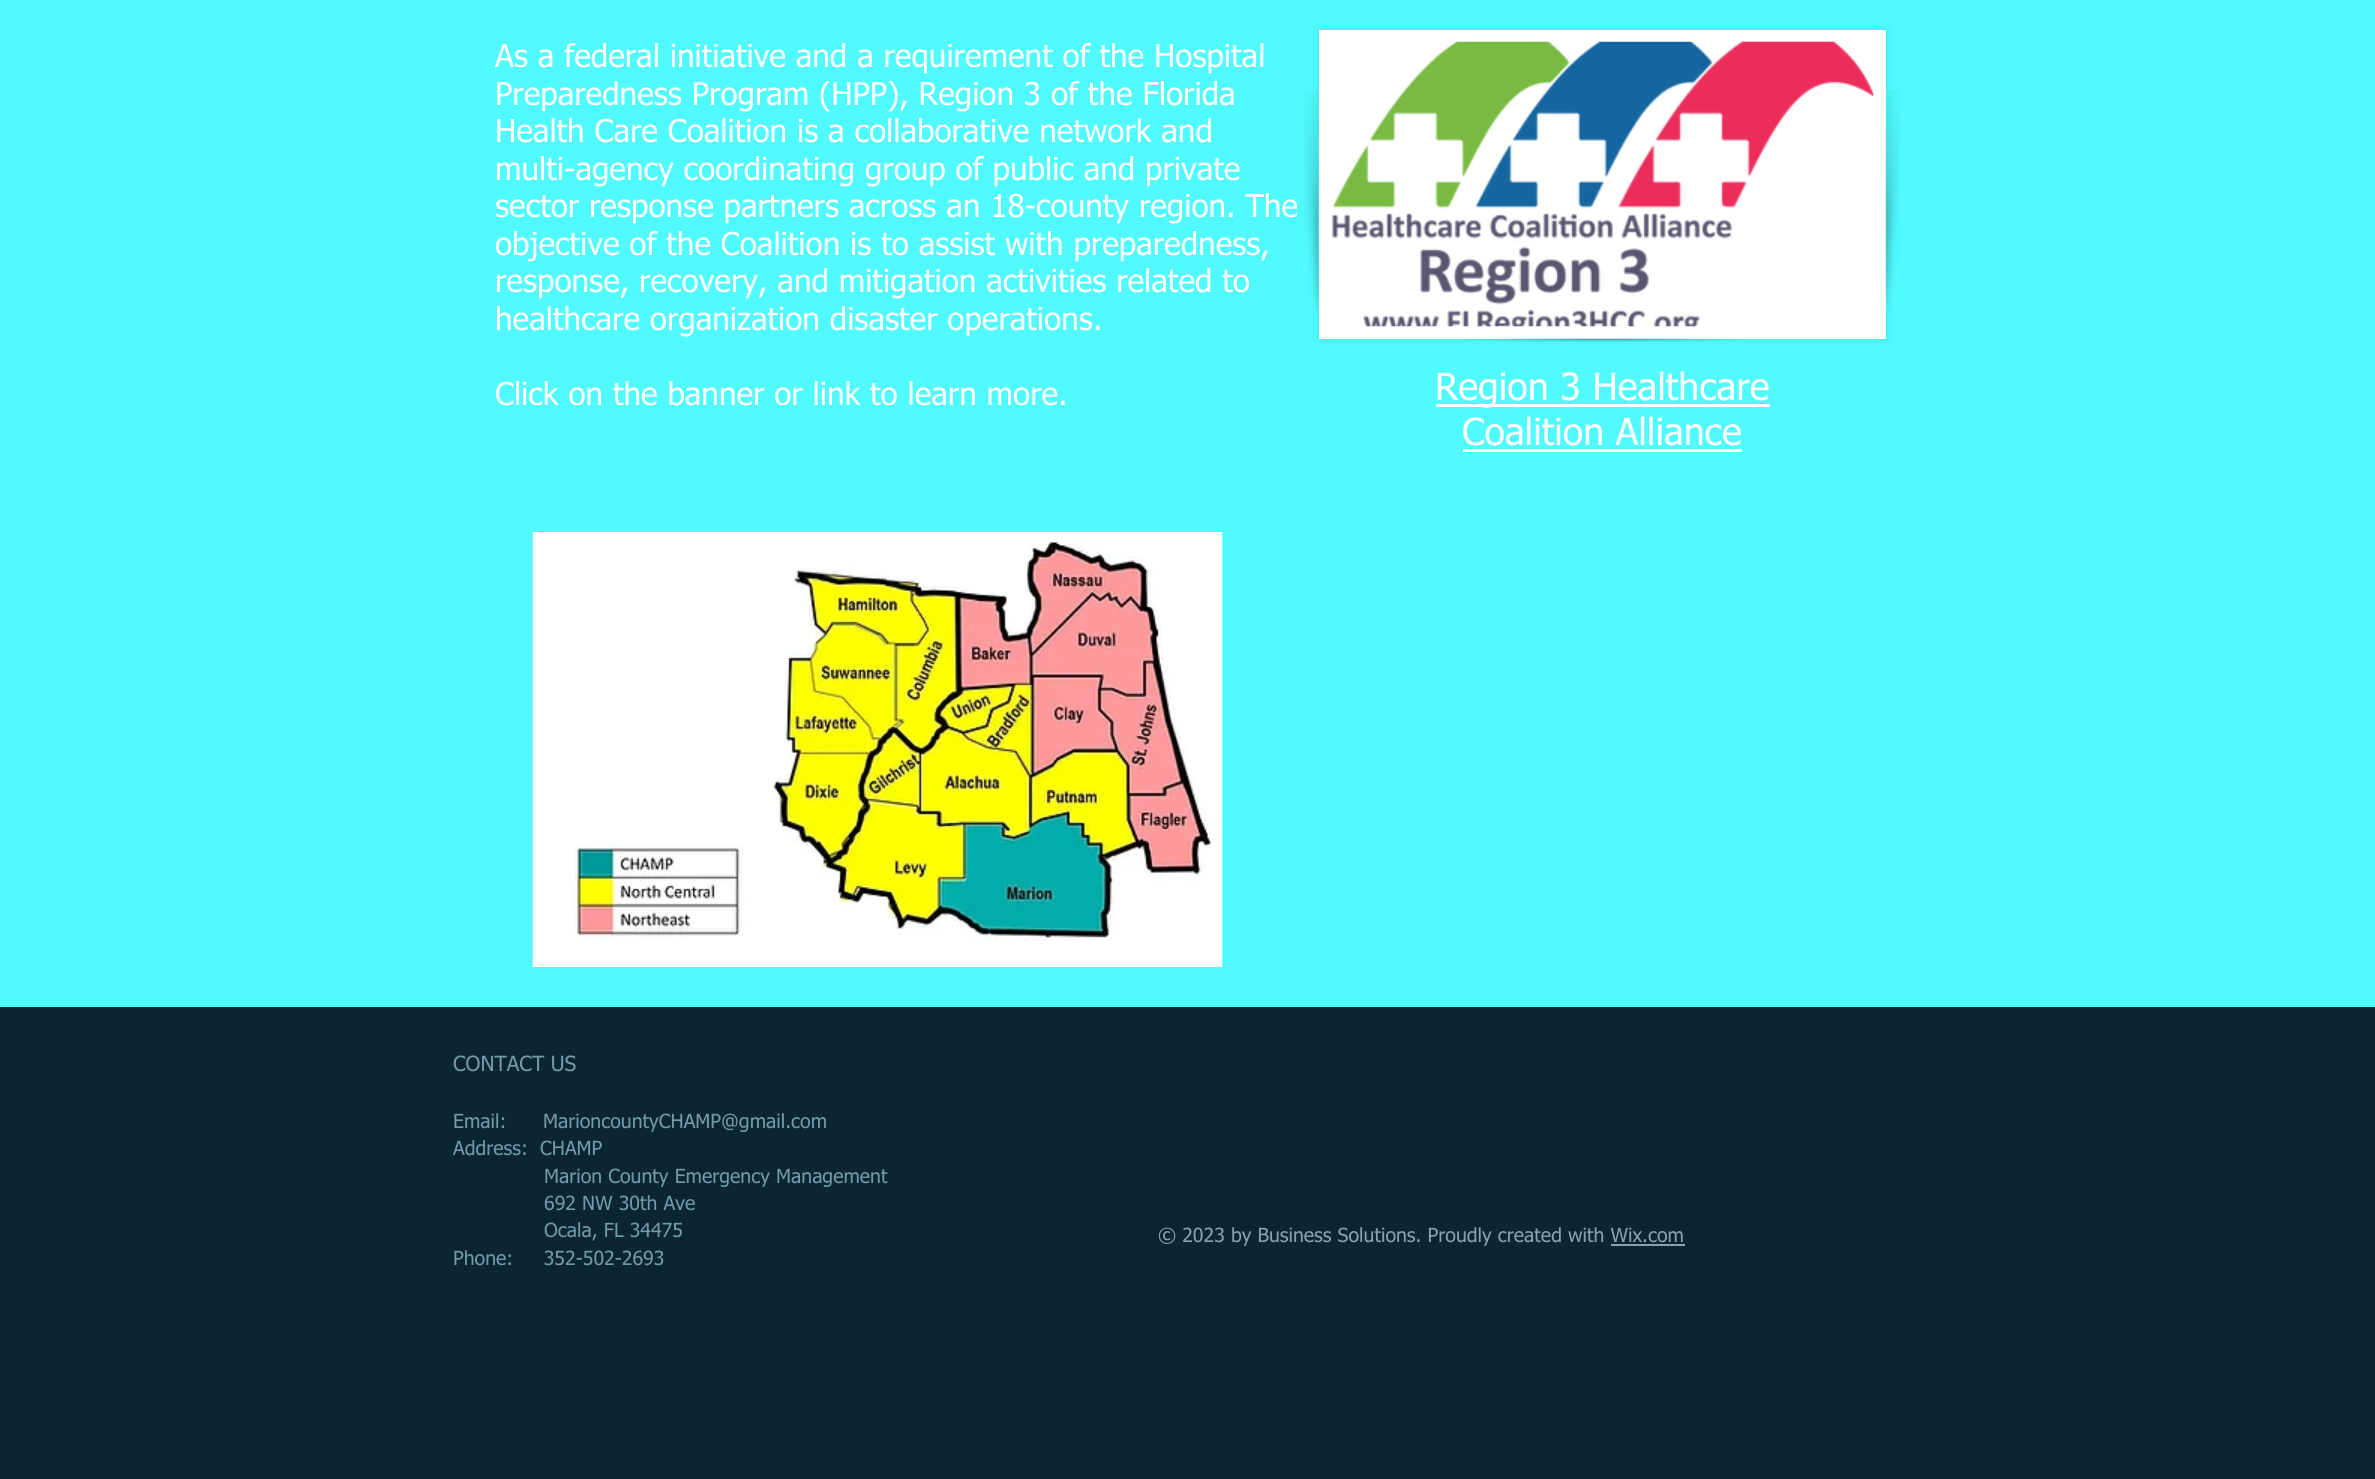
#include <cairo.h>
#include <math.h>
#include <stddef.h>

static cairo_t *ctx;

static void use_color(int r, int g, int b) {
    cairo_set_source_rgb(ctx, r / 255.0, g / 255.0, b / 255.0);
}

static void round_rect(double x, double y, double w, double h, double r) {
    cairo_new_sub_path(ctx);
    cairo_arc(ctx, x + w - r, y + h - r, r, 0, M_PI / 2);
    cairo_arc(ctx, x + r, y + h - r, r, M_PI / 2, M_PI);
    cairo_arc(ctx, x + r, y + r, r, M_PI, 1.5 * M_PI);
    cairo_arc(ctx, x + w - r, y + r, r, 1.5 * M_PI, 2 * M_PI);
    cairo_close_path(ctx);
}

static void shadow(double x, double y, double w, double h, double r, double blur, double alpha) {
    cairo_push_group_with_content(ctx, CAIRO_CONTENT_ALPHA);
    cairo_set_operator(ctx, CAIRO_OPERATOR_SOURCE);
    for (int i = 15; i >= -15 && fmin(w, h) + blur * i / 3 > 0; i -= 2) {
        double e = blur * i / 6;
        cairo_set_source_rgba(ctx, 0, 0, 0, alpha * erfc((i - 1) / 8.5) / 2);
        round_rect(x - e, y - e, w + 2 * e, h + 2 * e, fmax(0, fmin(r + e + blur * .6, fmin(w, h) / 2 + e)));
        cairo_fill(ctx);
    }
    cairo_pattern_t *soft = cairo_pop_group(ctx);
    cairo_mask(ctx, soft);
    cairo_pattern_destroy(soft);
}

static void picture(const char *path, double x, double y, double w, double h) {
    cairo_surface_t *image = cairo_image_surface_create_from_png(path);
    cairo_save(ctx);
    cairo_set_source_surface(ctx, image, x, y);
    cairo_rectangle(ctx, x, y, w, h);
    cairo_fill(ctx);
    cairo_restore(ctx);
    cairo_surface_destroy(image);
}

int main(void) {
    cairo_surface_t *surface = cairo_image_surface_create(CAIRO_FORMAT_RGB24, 2375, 1479);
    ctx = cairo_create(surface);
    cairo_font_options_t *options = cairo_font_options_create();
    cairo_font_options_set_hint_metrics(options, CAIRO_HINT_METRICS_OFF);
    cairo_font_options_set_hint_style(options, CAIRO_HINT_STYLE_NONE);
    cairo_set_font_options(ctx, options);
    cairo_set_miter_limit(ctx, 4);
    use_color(80, 250, 254);
    cairo_paint(ctx);
    cairo_select_font_face(ctx, "tahoma", CAIRO_FONT_SLANT_NORMAL, CAIRO_FONT_WEIGHT_NORMAL);
    cairo_set_font_size(ctx, 31.5);
    use_color(255, 255, 255);
    cairo_move_to(ctx, 495, 67);
    cairo_show_text(ctx, "As a federal initiative and a requirement of the Hospital");
    cairo_move_to(ctx, 495, 105);
    cairo_show_text(ctx, "Preparedness Program (HPP), Region 3 of the Florida");
    cairo_move_to(ctx, 495, 142);
    cairo_show_text(ctx, "Health Care Coalition is a collaborative network and");
    cairo_move_to(ctx, 495, 180);
    cairo_show_text(ctx, "multi-agency coordinating group of public and private");
    cairo_move_to(ctx, 495, 217);
    cairo_show_text(ctx, "sector response partners across an 18-county region. The");
    cairo_move_to(ctx, 495, 255);
    cairo_show_text(ctx, "objective of the Coalition is to assist with preparedness,");
    cairo_move_to(ctx, 495, 292);
    cairo_show_text(ctx, "response, recovery, and mitigation activities related to");
    cairo_move_to(ctx, 495, 330);
    cairo_show_text(ctx, "healthcare organization disaster operations.");
    cairo_move_to(ctx, 495, 405);
    cairo_show_text(ctx, "Click on the banner or link to learn more.");
    use_color(0, 0, 0);
    shadow(1319, 30, 567, 309, 0, 4, 0.1);
    use_color(255, 255, 255);
    cairo_rectangle(ctx, 1319, 30, 567, 309);
    cairo_fill(ctx);
    picture("img1.png", 1331, 41, 543, 286);
    picture("img2.png", 1464, 338, 276, 4);
    picture("img3.png", 1304, 90, 15, 220);
    picture("img4.png", 1885, 90, 15, 221);
    cairo_rectangle(ctx, 1436, 404, 334, 3);
    cairo_fill(ctx);
    cairo_set_font_size(ctx, 37.5);
    cairo_move_to(ctx, 1435, 400);
    cairo_show_text(ctx, "Region 3 Healthcare");
    cairo_move_to(ctx, 1462, 445);
    cairo_show_text(ctx, "Coalition Alliance");
    cairo_rectangle(ctx, 1463, 449, 279, 3);
    cairo_fill(ctx);
    picture("img5.png", 532, 532, 691, 435);
    use_color(11, 37, 51);
    cairo_rectangle(ctx, 0, 1007, 2375, 472);
    cairo_fill(ctx);
    cairo_set_font_size(ctx, 21);
    use_color(114, 154, 169);
    cairo_move_to(ctx, 453, 1071);
    cairo_show_text(ctx, "CONTACT US");
    cairo_set_font_size(ctx, 19.5);
    cairo_move_to(ctx, 453, 1128);
    cairo_show_text(ctx, "Email:");
    cairo_move_to(ctx, 543, 1128);
    cairo_show_text(ctx, "MarioncountyCHAMP@gmail.com");
    cairo_move_to(ctx, 453, 1155);
    cairo_show_text(ctx, "Address:  CHAMP");
    cairo_move_to(ctx, 544, 1183);
    cairo_show_text(ctx, "Marion County Emergency Management");
    cairo_move_to(ctx, 544, 1210);
    cairo_show_text(ctx, "692 NW 30th Ave");
    cairo_move_to(ctx, 544, 1237);
    cairo_show_text(ctx, "Ocala, FL 34475");
    cairo_move_to(ctx, 453, 1265);
    cairo_show_text(ctx, "Phone:     352-502-2693");
    use_color(140, 161, 173);
    cairo_move_to(ctx, 1158, 1242);
    cairo_show_text(ctx, "© 2023 by Business Solutions. Proudly created with Wix.com");
    cairo_rectangle(ctx, 1611, 1244, 74, 2);
    cairo_fill(ctx);
    cairo_surface_write_to_png(surface, "result.png");
    cairo_font_options_destroy(options);
    cairo_destroy(ctx);
    cairo_surface_destroy(surface);
    return 0;
}
